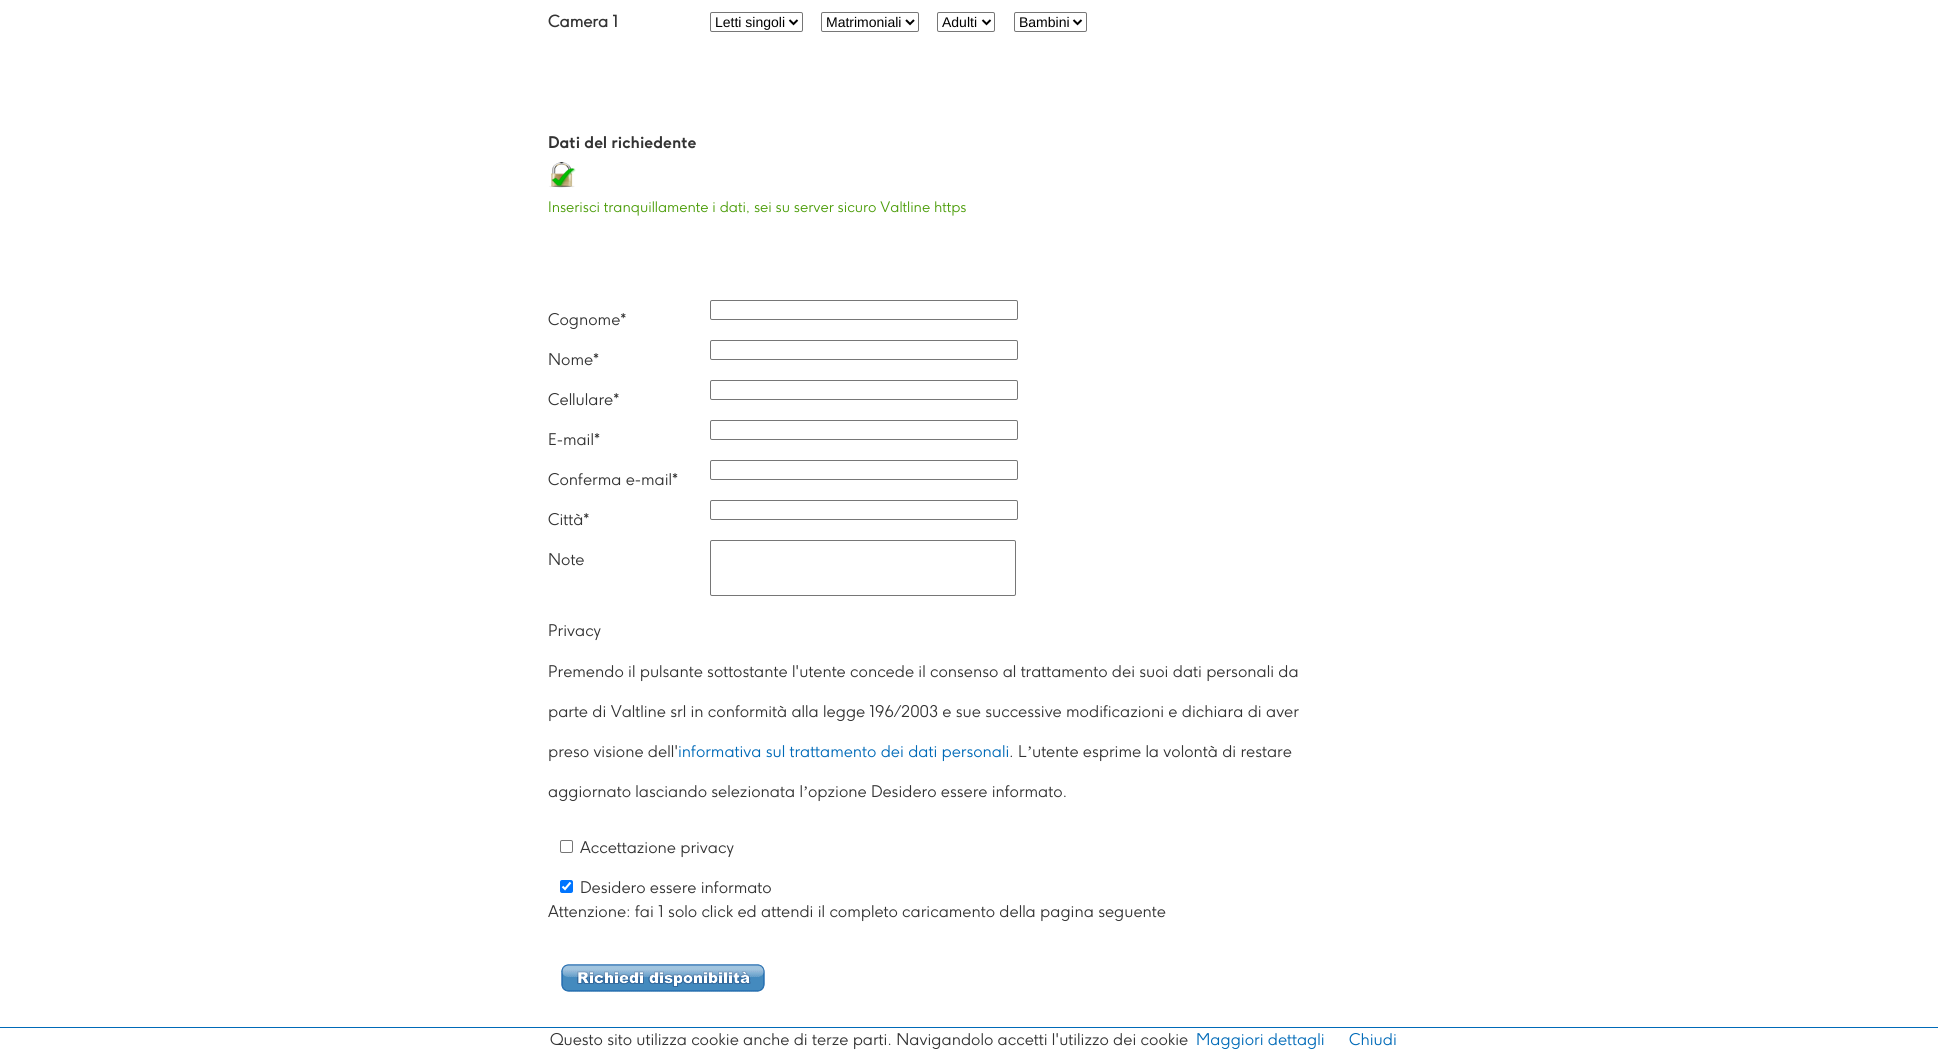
#include <cairo.h>
#include <math.h>
#include <stddef.h>

static cairo_t *ctx;

static void use_color(int r, int g, int b) {
    cairo_set_source_rgb(ctx, r / 255.0, g / 255.0, b / 255.0);
}

static void round_rect(double x, double y, double w, double h, double r) {
    cairo_new_sub_path(ctx);
    cairo_arc(ctx, x + w - r, y + h - r, r, 0, M_PI / 2);
    cairo_arc(ctx, x + r, y + h - r, r, M_PI / 2, M_PI);
    cairo_arc(ctx, x + r, y + r, r, M_PI, 1.5 * M_PI);
    cairo_arc(ctx, x + w - r, y + r, r, 1.5 * M_PI, 2 * M_PI);
    cairo_close_path(ctx);
}

static void picture(const char *path, double x, double y, double w, double h) {
    cairo_surface_t *image = cairo_image_surface_create_from_png(path);
    cairo_save(ctx);
    cairo_set_source_surface(ctx, image, x, y);
    cairo_rectangle(ctx, x, y, w, h);
    cairo_fill(ctx);
    cairo_restore(ctx);
    cairo_surface_destroy(image);
}

int main(void) {
    cairo_surface_t *surface = cairo_image_surface_create(CAIRO_FORMAT_RGB24, 1938, 1052);
    ctx = cairo_create(surface);
    cairo_font_options_t *options = cairo_font_options_create();
    cairo_font_options_set_hint_metrics(options, CAIRO_HINT_METRICS_OFF);
    cairo_font_options_set_hint_style(options, CAIRO_HINT_STYLE_NONE);
    cairo_set_font_options(ctx, options);
    cairo_set_miter_limit(ctx, 4);
    use_color(255, 255, 255);
    cairo_paint(ctx);
    cairo_select_font_face(ctx, "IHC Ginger", CAIRO_FONT_SLANT_NORMAL, CAIRO_FONT_WEIGHT_BOLD);
    cairo_set_font_size(ctx, 16);
    use_color(51, 51, 51);
    cairo_move_to(ctx, 548, 27);
    cairo_show_text(ctx, "Camera 1");
    round_rect(710.5, 12.5, 92, 19, 1.5);
    use_color(118, 118, 118);
    cairo_set_line_width(ctx, 1);
    cairo_stroke(ctx);
    cairo_new_path(ctx);
    cairo_move_to(ctx, 789.5, 20);
    cairo_line_to(ctx, 793.5, 24);
    cairo_line_to(ctx, 797.5, 20);
    use_color(0, 0, 0);
    cairo_set_line_width(ctx, 2);
    cairo_stroke(ctx);
    cairo_select_font_face(ctx, "Liberation Sans", CAIRO_FONT_SLANT_NORMAL, CAIRO_FONT_WEIGHT_NORMAL);
    cairo_set_font_size(ctx, 14);
    cairo_move_to(ctx, 715, 27);
    cairo_show_text(ctx, "Letti singoli");
    round_rect(821.5, 12.5, 97, 19, 1.5);
    use_color(118, 118, 118);
    cairo_set_line_width(ctx, 1);
    cairo_stroke(ctx);
    cairo_new_path(ctx);
    cairo_move_to(ctx, 906, 20);
    cairo_line_to(ctx, 910, 24);
    cairo_line_to(ctx, 914, 20);
    use_color(0, 0, 0);
    cairo_set_line_width(ctx, 2);
    cairo_stroke(ctx);
    cairo_move_to(ctx, 826, 27);
    cairo_show_text(ctx, "Matrimoniali");
    round_rect(937.5, 12.5, 57, 19, 1.5);
    use_color(118, 118, 118);
    cairo_set_line_width(ctx, 1);
    cairo_stroke(ctx);
    cairo_new_path(ctx);
    cairo_move_to(ctx, 982.5, 20);
    cairo_line_to(ctx, 986.5, 24);
    cairo_line_to(ctx, 990.5, 20);
    use_color(0, 0, 0);
    cairo_set_line_width(ctx, 2);
    cairo_stroke(ctx);
    cairo_move_to(ctx, 942, 27);
    cairo_show_text(ctx, "Adulti");
    round_rect(1014.5, 12.5, 72, 19, 1.5);
    use_color(118, 118, 118);
    cairo_set_line_width(ctx, 1);
    cairo_stroke(ctx);
    cairo_new_path(ctx);
    cairo_move_to(ctx, 1073.5, 20);
    cairo_line_to(ctx, 1077.5, 24);
    cairo_line_to(ctx, 1081.5, 20);
    use_color(0, 0, 0);
    cairo_set_line_width(ctx, 2);
    cairo_stroke(ctx);
    cairo_move_to(ctx, 1019, 27);
    cairo_show_text(ctx, "Bambini");
    cairo_select_font_face(ctx, "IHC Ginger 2", CAIRO_FONT_SLANT_NORMAL, CAIRO_FONT_WEIGHT_BOLD);
    cairo_set_font_size(ctx, 16);
    use_color(51, 51, 51);
    cairo_move_to(ctx, 548, 148);
    cairo_show_text(ctx, "Dati del richiedente");
    picture("img1.png", 549, 162, 27, 26);
    cairo_select_font_face(ctx, "IHC Ginger Light", CAIRO_FONT_SLANT_NORMAL, CAIRO_FONT_WEIGHT_NORMAL);
    cairo_set_font_size(ctx, 14.4);
    use_color(76, 157, 10);
    cairo_move_to(ctx, 548, 212);
    cairo_show_text(ctx, "Inserisci tranquillamente i dati, sei su server sicuro Valtline https");
    cairo_set_font_size(ctx, 16);
    use_color(51, 51, 51);
    cairo_move_to(ctx, 548, 325);
    cairo_show_text(ctx, "Cognome*");
    round_rect(710.5, 300.5, 307, 19, 1.5);
    use_color(118, 118, 118);
    cairo_set_line_width(ctx, 1);
    cairo_stroke(ctx);
    use_color(51, 51, 51);
    cairo_move_to(ctx, 548, 365);
    cairo_show_text(ctx, "Nome*");
    round_rect(710.5, 340.5, 307, 19, 1.5);
    use_color(118, 118, 118);
    cairo_stroke(ctx);
    use_color(51, 51, 51);
    cairo_move_to(ctx, 548, 405);
    cairo_show_text(ctx, "Cellulare*");
    round_rect(710.5, 380.5, 307, 19, 1.5);
    use_color(118, 118, 118);
    cairo_stroke(ctx);
    use_color(51, 51, 51);
    cairo_move_to(ctx, 548, 445);
    cairo_show_text(ctx, "E-mail*");
    round_rect(710.5, 420.5, 307, 19, 1.5);
    use_color(118, 118, 118);
    cairo_stroke(ctx);
    use_color(51, 51, 51);
    cairo_move_to(ctx, 548, 485);
    cairo_show_text(ctx, "Conferma e-mail*");
    round_rect(710.5, 460.5, 307, 19, 1.5);
    use_color(118, 118, 118);
    cairo_stroke(ctx);
    use_color(51, 51, 51);
    cairo_move_to(ctx, 548, 525);
    cairo_show_text(ctx, "Città*");
    round_rect(710.5, 500.5, 307, 19, 1.5);
    use_color(118, 118, 118);
    cairo_stroke(ctx);
    use_color(51, 51, 51);
    cairo_move_to(ctx, 548, 565);
    cairo_show_text(ctx, "Note");
    round_rect(710.5, 540.5, 305, 55, 1.5);
    use_color(118, 118, 118);
    cairo_stroke(ctx);
    use_color(51, 51, 51);
    cairo_move_to(ctx, 548, 636);
    cairo_show_text(ctx, "Privacy");
    cairo_move_to(ctx, 548, 677);
    cairo_show_text(ctx, "Premendo il pulsante sottostante l'utente concede il consenso al trattamento dei suoi dati personali da");
    cairo_move_to(ctx, 548, 717);
    cairo_show_text(ctx, "parte di Valtline srl in conformità alla legge 196/2003 e sue successive modificazioni e dichiara di aver");
    cairo_move_to(ctx, 548, 757);
    cairo_show_text(ctx, "preso visione dell'");
    use_color(0, 106, 184);
    cairo_move_to(ctx, 678, 757);
    cairo_show_text(ctx, "informativa sul trattamento dei dati personali");
    use_color(51, 51, 51);
    cairo_move_to(ctx, 1009, 757);
    cairo_show_text(ctx, ". L");
    cairo_select_font_face(ctx, "Liberation Serif", CAIRO_FONT_SLANT_NORMAL, CAIRO_FONT_WEIGHT_NORMAL);
    cairo_move_to(ctx, 1027, 757);
    cairo_show_text(ctx, "’");
    cairo_select_font_face(ctx, "IHC Ginger Light", CAIRO_FONT_SLANT_NORMAL, CAIRO_FONT_WEIGHT_NORMAL);
    cairo_move_to(ctx, 1032, 757);
    cairo_show_text(ctx, "utente esprime la volontà di restare");
    cairo_move_to(ctx, 548, 797);
    cairo_show_text(ctx, "aggiornato lasciando selezionata l");
    cairo_select_font_face(ctx, "Liberation Serif", CAIRO_FONT_SLANT_NORMAL, CAIRO_FONT_WEIGHT_NORMAL);
    cairo_move_to(ctx, 803, 797);
    cairo_show_text(ctx, "’");
    cairo_select_font_face(ctx, "IHC Ginger Light", CAIRO_FONT_SLANT_NORMAL, CAIRO_FONT_WEIGHT_NORMAL);
    cairo_move_to(ctx, 808, 797);
    cairo_show_text(ctx, "opzione Desidero essere informato.");
    round_rect(560.5, 840.5, 12, 12, 1.5);
    use_color(118, 118, 118);
    cairo_stroke(ctx);
    use_color(51, 51, 51);
    cairo_move_to(ctx, 580, 853);
    cairo_show_text(ctx, "Accettazione privacy");
    use_color(0, 117, 255);
    round_rect(560, 880, 13, 13, 2);
    cairo_fill(ctx);
    cairo_new_path(ctx);
    cairo_move_to(ctx, 562.5, 886.5);
    cairo_line_to(ctx, 565, 889);
    cairo_line_to(ctx, 570.5, 882.5);
    use_color(255, 255, 255);
    cairo_set_line_width(ctx, 2.1);
    cairo_stroke(ctx);
    use_color(51, 51, 51);
    cairo_move_to(ctx, 580, 893);
    cairo_show_text(ctx, "Desidero essere informato");
    cairo_move_to(ctx, 548, 917);
    cairo_show_text(ctx, "Attenzione: fai 1 solo click ed attendi il completo caricamento della pagina seguente");
    picture("img2.png", 561, 964, 204, 28);
    use_color(0, 106, 184);
    cairo_rectangle(ctx, 0, 1027, 1938, 1);
    cairo_fill(ctx);
    use_color(51, 51, 51);
    cairo_move_to(ctx, 550, 1045);
    cairo_show_text(ctx, "Questo sito utilizza cookie anche di terze parti. Navigandolo accetti l'utilizzo dei cookie");
    use_color(0, 106, 184);
    cairo_move_to(ctx, 1196, 1045);
    cairo_show_text(ctx, "Maggiori dettagli");
    cairo_move_to(ctx, 1349, 1045);
    cairo_show_text(ctx, "Chiudi");
    cairo_surface_write_to_png(surface, "result.png");
    cairo_font_options_destroy(options);
    cairo_destroy(ctx);
    cairo_surface_destroy(surface);
    return 0;
}
